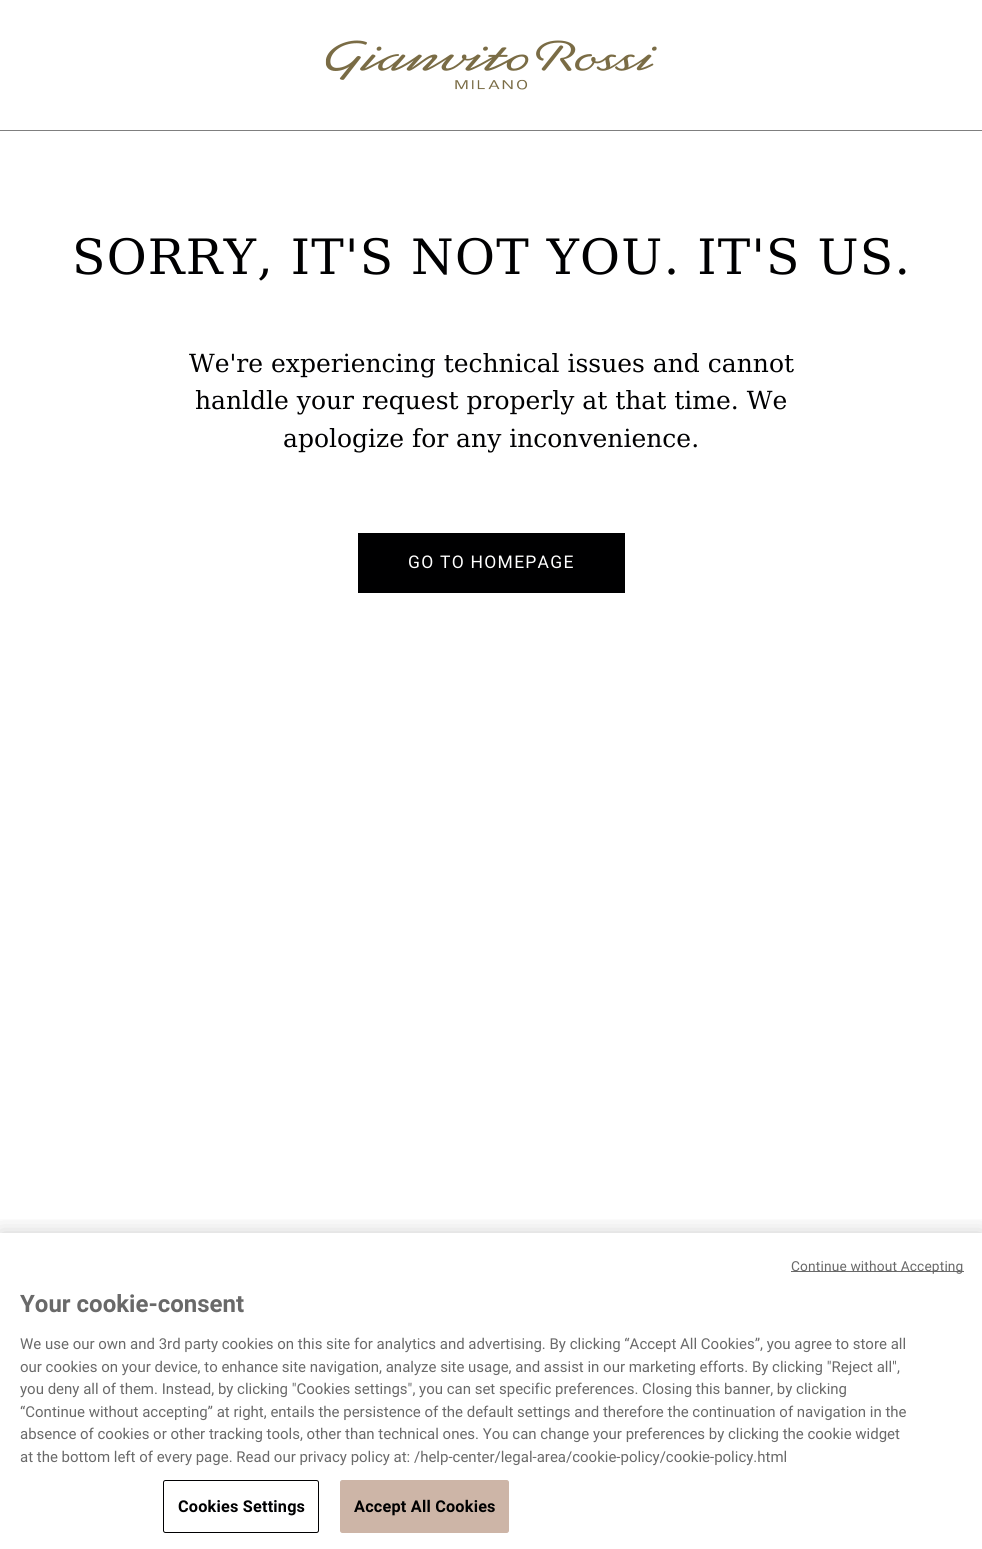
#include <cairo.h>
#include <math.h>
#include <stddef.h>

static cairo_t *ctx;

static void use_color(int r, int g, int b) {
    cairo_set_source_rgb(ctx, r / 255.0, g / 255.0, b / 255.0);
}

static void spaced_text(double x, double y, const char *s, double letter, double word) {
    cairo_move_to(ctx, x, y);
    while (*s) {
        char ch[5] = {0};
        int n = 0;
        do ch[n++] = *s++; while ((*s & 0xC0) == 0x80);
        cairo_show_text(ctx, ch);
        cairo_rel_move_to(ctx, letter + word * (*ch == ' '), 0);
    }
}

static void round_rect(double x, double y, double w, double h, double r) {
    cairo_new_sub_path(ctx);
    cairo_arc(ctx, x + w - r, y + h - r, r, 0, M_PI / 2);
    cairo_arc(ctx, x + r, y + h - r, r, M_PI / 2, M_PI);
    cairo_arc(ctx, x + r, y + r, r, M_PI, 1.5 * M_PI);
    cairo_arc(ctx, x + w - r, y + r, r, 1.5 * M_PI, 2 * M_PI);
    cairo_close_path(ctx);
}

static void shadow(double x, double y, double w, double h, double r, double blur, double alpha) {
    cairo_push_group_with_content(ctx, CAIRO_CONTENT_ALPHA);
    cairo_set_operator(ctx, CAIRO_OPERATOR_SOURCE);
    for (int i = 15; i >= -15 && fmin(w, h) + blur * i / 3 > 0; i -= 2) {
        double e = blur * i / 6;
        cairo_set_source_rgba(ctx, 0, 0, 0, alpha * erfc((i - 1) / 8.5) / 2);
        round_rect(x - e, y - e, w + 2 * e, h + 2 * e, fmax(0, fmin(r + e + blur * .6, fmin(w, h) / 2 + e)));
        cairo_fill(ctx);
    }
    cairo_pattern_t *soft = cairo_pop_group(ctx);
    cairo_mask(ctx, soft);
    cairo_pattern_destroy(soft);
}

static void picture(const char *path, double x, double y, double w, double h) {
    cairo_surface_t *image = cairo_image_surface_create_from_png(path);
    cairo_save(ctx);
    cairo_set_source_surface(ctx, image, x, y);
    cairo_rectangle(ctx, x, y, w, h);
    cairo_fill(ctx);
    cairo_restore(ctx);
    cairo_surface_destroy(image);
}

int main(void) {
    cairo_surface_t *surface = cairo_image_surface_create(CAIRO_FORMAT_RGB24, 982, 1549);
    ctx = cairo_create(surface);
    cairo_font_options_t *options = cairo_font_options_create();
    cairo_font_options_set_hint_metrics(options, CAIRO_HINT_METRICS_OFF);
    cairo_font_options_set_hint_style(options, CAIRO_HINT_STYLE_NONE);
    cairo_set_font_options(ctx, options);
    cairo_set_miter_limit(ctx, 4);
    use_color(255, 255, 255);
    cairo_paint(ctx);
    use_color(127, 127, 127);
    cairo_rectangle(ctx, 0, 130, 982, 1);
    cairo_fill(ctx);
    picture("img1.png", 325, 40, 332, 50);
    cairo_select_font_face(ctx, "DejaVu Serif", CAIRO_FONT_SLANT_NORMAL, CAIRO_FONT_WEIGHT_NORMAL);
    cairo_set_font_size(ctx, 48.75);
    use_color(0, 0, 1);
    spaced_text(72, 274, "SORRY, IT'S NOT YOU. IT'S US.", 1.25, 0);
    cairo_set_font_size(ctx, 25);
    cairo_move_to(ctx, 189, 372);
    cairo_show_text(ctx, "We're experiencing technical issues and cannot");
    cairo_move_to(ctx, 195, 409);
    cairo_show_text(ctx, "hanldle your request properly at that time. We");
    cairo_move_to(ctx, 283, 447);
    cairo_show_text(ctx, "apologize for any inconvenience.");
    cairo_rectangle(ctx, 358, 533, 267, 60);
    cairo_fill(ctx);
    cairo_select_font_face(ctx, "Roboto", CAIRO_FONT_SLANT_NORMAL, CAIRO_FONT_WEIGHT_NORMAL);
    cairo_set_font_size(ctx, 17.5);
    use_color(255, 255, 255);
    spaced_text(408, 568, "GO TO HOMEPAGE", 1.25, 0);
    cairo_save(ctx);
    cairo_rectangle(ctx, 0, 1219, 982, 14);
    cairo_clip(ctx);
    use_color(0, 0, 0);
    shadow(0, 1233, 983, 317, 0, 11, 0.2);
    cairo_restore(ctx);
    use_color(105, 105, 105);
    cairo_rectangle(ctx, 791, 1271, 173, 1);
    cairo_fill(ctx);
    cairo_set_font_size(ctx, 13.75);
    spaced_text(791, 1271, "Continue without Accepting", 0.15, 0);
    cairo_select_font_face(ctx, "Roboto", CAIRO_FONT_SLANT_NORMAL, CAIRO_FONT_WEIGHT_BOLD);
    cairo_set_font_size(ctx, 24);
    cairo_move_to(ctx, 20, 1312);
    cairo_show_text(ctx, "Your cookie-consent");
    cairo_select_font_face(ctx, "Roboto", CAIRO_FONT_SLANT_NORMAL, CAIRO_FONT_WEIGHT_NORMAL);
    cairo_set_font_size(ctx, 15);
    cairo_move_to(ctx, 20, 1349);
    cairo_show_text(ctx, "We use our own and 3rd party cookies on this site for analytics and advertising. By clicking “Accept All Cookies”, you agree to store all");
    cairo_move_to(ctx, 20, 1372);
    cairo_show_text(ctx, "our cookies on your device, to enhance site navigation, analyze site usage, and assist in our marketing efforts. By clicking \"Reject all\",");
    cairo_move_to(ctx, 20, 1394);
    cairo_show_text(ctx, "you deny all of them. Instead, by clicking \"Cookies settings\", you can set specific preferences. Closing this banner, by clicking");
    cairo_move_to(ctx, 20, 1417);
    cairo_show_text(ctx, "“Continue without accepting” at right, entails the persistence of the default settings and therefore the continuation of navigation in the");
    cairo_move_to(ctx, 20, 1439);
    cairo_show_text(ctx, "absence of cookies or other tracking tools, other than technical ones. You can change your preferences by clicking the cookie widget");
    cairo_move_to(ctx, 20, 1462);
    cairo_show_text(ctx, "at the bottom left of every page. Read our privacy policy at: /help-center/legal-area/cookie-policy/cookie-policy.html");
    round_rect(163.5, 1480.5, 155, 52, 2);
    use_color(0, 0, 1);
    cairo_set_line_width(ctx, 1);
    cairo_stroke(ctx);
    cairo_select_font_face(ctx, "Roboto", CAIRO_FONT_SLANT_NORMAL, CAIRO_FONT_WEIGHT_BOLD);
    cairo_set_font_size(ctx, 16.25);
    spaced_text(178, 1512, "Cookies Settings", 0.2, 0);
    use_color(205, 181, 167);
    round_rect(340.5, 1480.5, 168, 52, 2);
    cairo_fill_preserve(ctx);
    cairo_stroke(ctx);
    use_color(0, 0, 1);
    spaced_text(354, 1512, "Accept All Cookies", 0.2, 0);
    cairo_surface_write_to_png(surface, "result.png");
    cairo_font_options_destroy(options);
    cairo_destroy(ctx);
    cairo_surface_destroy(surface);
    return 0;
}
